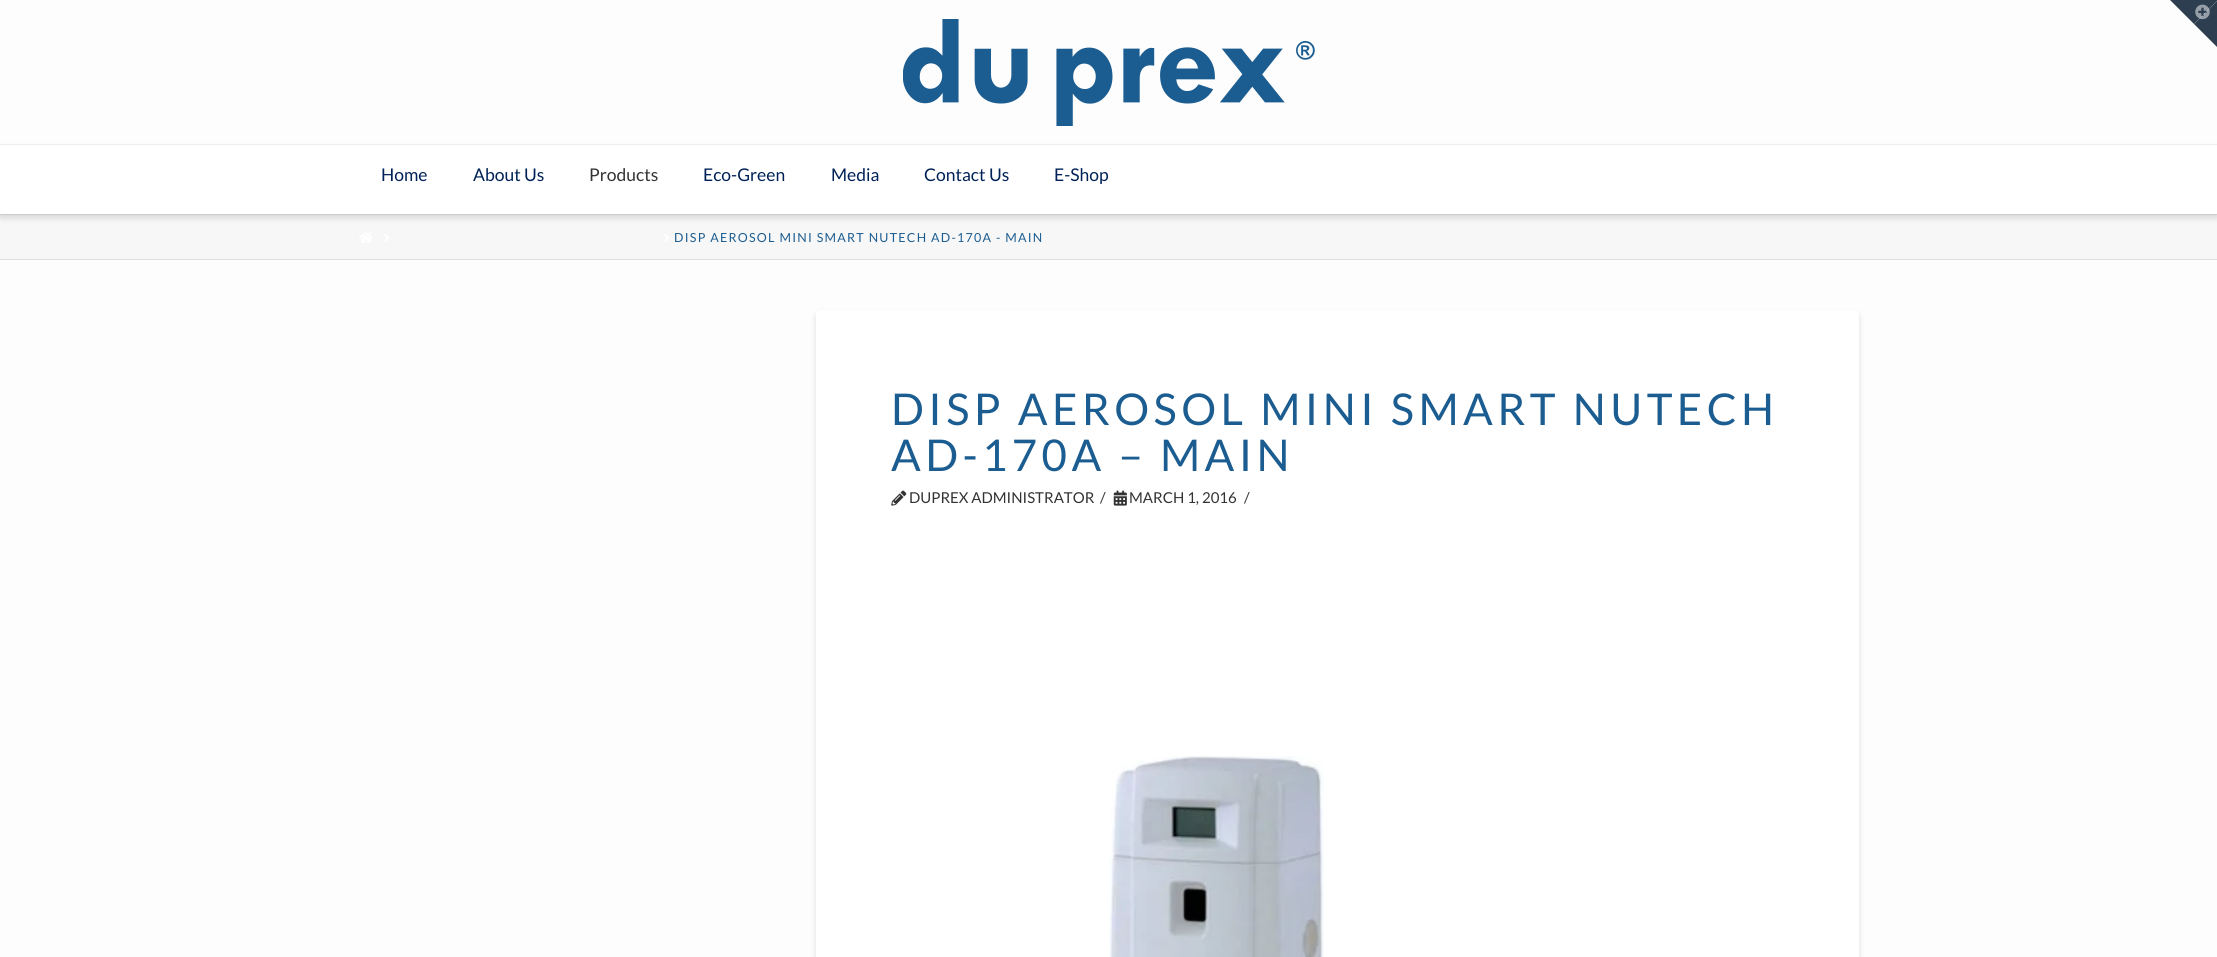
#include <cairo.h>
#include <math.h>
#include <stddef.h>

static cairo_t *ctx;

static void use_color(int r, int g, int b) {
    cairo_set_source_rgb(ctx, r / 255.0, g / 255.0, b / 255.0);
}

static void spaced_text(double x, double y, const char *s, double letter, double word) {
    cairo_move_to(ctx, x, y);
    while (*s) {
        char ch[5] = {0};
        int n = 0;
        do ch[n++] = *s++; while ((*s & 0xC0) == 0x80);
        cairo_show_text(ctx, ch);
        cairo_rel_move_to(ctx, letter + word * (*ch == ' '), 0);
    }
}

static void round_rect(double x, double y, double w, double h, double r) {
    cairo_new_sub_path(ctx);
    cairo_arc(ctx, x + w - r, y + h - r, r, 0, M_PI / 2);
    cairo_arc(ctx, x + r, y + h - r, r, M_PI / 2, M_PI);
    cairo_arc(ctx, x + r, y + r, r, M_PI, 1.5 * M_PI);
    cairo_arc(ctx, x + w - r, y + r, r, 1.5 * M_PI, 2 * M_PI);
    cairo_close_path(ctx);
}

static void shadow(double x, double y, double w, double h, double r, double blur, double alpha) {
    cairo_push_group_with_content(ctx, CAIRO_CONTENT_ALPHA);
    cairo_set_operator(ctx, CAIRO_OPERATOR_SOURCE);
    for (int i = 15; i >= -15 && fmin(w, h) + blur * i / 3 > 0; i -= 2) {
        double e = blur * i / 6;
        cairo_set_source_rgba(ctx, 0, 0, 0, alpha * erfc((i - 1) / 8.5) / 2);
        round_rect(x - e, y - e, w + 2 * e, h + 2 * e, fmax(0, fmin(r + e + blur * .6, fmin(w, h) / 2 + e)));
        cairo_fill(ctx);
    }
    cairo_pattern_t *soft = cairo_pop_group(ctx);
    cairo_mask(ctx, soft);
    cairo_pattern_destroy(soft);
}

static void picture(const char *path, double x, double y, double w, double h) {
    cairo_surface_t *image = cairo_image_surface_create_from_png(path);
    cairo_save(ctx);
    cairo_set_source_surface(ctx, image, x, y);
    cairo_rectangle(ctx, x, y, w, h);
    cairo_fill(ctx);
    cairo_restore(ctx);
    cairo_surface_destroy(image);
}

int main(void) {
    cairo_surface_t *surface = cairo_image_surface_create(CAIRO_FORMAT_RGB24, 2217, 957);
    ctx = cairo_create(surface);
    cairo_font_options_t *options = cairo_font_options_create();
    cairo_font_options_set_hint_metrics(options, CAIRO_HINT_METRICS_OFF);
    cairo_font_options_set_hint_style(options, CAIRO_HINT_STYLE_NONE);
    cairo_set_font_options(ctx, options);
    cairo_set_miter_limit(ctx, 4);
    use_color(253, 253, 253);
    cairo_paint(ctx);
    use_color(44, 62, 80);
    cairo_new_path(ctx);
    cairo_move_to(ctx, 2170, 0);
    cairo_line_to(ctx, 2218, 0);
    cairo_line_to(ctx, 2194, 24);
    cairo_close_path(ctx);
    cairo_fill(ctx);
    cairo_new_path(ctx);
    cairo_move_to(ctx, 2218, 0);
    cairo_line_to(ctx, 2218, 48);
    cairo_line_to(ctx, 2194, 24);
    cairo_close_path(ctx);
    cairo_fill(ctx);
    picture("img1.png", 2195, 4, 15, 16);
    use_color(242, 242, 242);
    cairo_rectangle(ctx, 0, 144, 2217, 1);
    cairo_fill(ctx);
    picture("img2.png", 903, 19, 412, 107);
    use_color(247, 247, 247);
    cairo_rectangle(ctx, 0, 215, 2217, 44);
    cairo_fill(ctx);
    use_color(0, 0, 0);
    shadow(0, 148, 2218, 70, 0, 3, 0.13);
    use_color(255, 255, 255);
    cairo_rectangle(ctx, 0, 145, 2217, 69);
    cairo_fill(ctx);
    use_color(204, 204, 204);
    cairo_rectangle(ctx, 0, 214, 2217, 1);
    cairo_fill(ctx);
    cairo_select_font_face(ctx, "Lato", CAIRO_FONT_SLANT_NORMAL, CAIRO_FONT_WEIGHT_NORMAL);
    cairo_set_font_size(ctx, 17.5);
    use_color(0, 33, 87);
    cairo_move_to(ctx, 381, 181);
    cairo_show_text(ctx, "Home");
    cairo_move_to(ctx, 473, 181);
    cairo_show_text(ctx, "About Us");
    use_color(51, 51, 51);
    cairo_move_to(ctx, 589, 181);
    cairo_show_text(ctx, "Products");
    use_color(0, 33, 87);
    cairo_move_to(ctx, 703, 181);
    cairo_show_text(ctx, "Eco-Green");
    cairo_move_to(ctx, 831, 181);
    cairo_show_text(ctx, "Media");
    cairo_move_to(ctx, 924, 181);
    cairo_show_text(ctx, "Contact Us");
    cairo_move_to(ctx, 1054, 181);
    cairo_show_text(ctx, "E-Shop");
    use_color(222, 222, 222);
    cairo_rectangle(ctx, 0, 259, 2217, 1);
    cairo_fill(ctx);
    picture("img3.png", 359, 232, 13, 11);
    picture("img4.png", 384, 234, 5, 8);
    picture("img4.png", 664, 234, 5, 8);
    cairo_set_font_size(ctx, 12.5);
    use_color(28, 93, 145);
    spaced_text(674, 242, "DISP AEROSOL MINI SMART NUTECH AD-170A - MAIN", 1.25, 0);
    use_color(0, 0, 0);
    shadow(816, 313, 1043, 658, 5, 3, 0.13);
    use_color(255, 255, 255);
    round_rect(816, 310, 1043, 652, 5);
    cairo_fill(ctx);
    cairo_set_font_size(ctx, 43.75);
    use_color(28, 93, 145);
    spaced_text(891, 425, "DISP AEROSOL MINI SMART NUTECH", 4.4, 0);
    spaced_text(891, 471, "AD-170A – MAIN", 4.4, 0);
    picture("img5.png", 891, 490, 16, 16);
    cairo_set_font_size(ctx, 15);
    use_color(51, 51, 51);
    cairo_move_to(ctx, 909, 503);
    cairo_show_text(ctx, "DUPREX ADMINISTRATOR");
    cairo_move_to(ctx, 1100, 503);
    cairo_show_text(ctx, "/");
    picture("img6.png", 1113, 490, 14, 16);
    cairo_move_to(ctx, 1129, 503);
    cairo_show_text(ctx, "MARCH 1, 2016");
    cairo_move_to(ctx, 1244, 503);
    cairo_show_text(ctx, "/");
    picture("img7.png", 1109, 756, 215, 201);
    cairo_surface_write_to_png(surface, "result.png");
    cairo_font_options_destroy(options);
    cairo_destroy(ctx);
    cairo_surface_destroy(surface);
    return 0;
}
